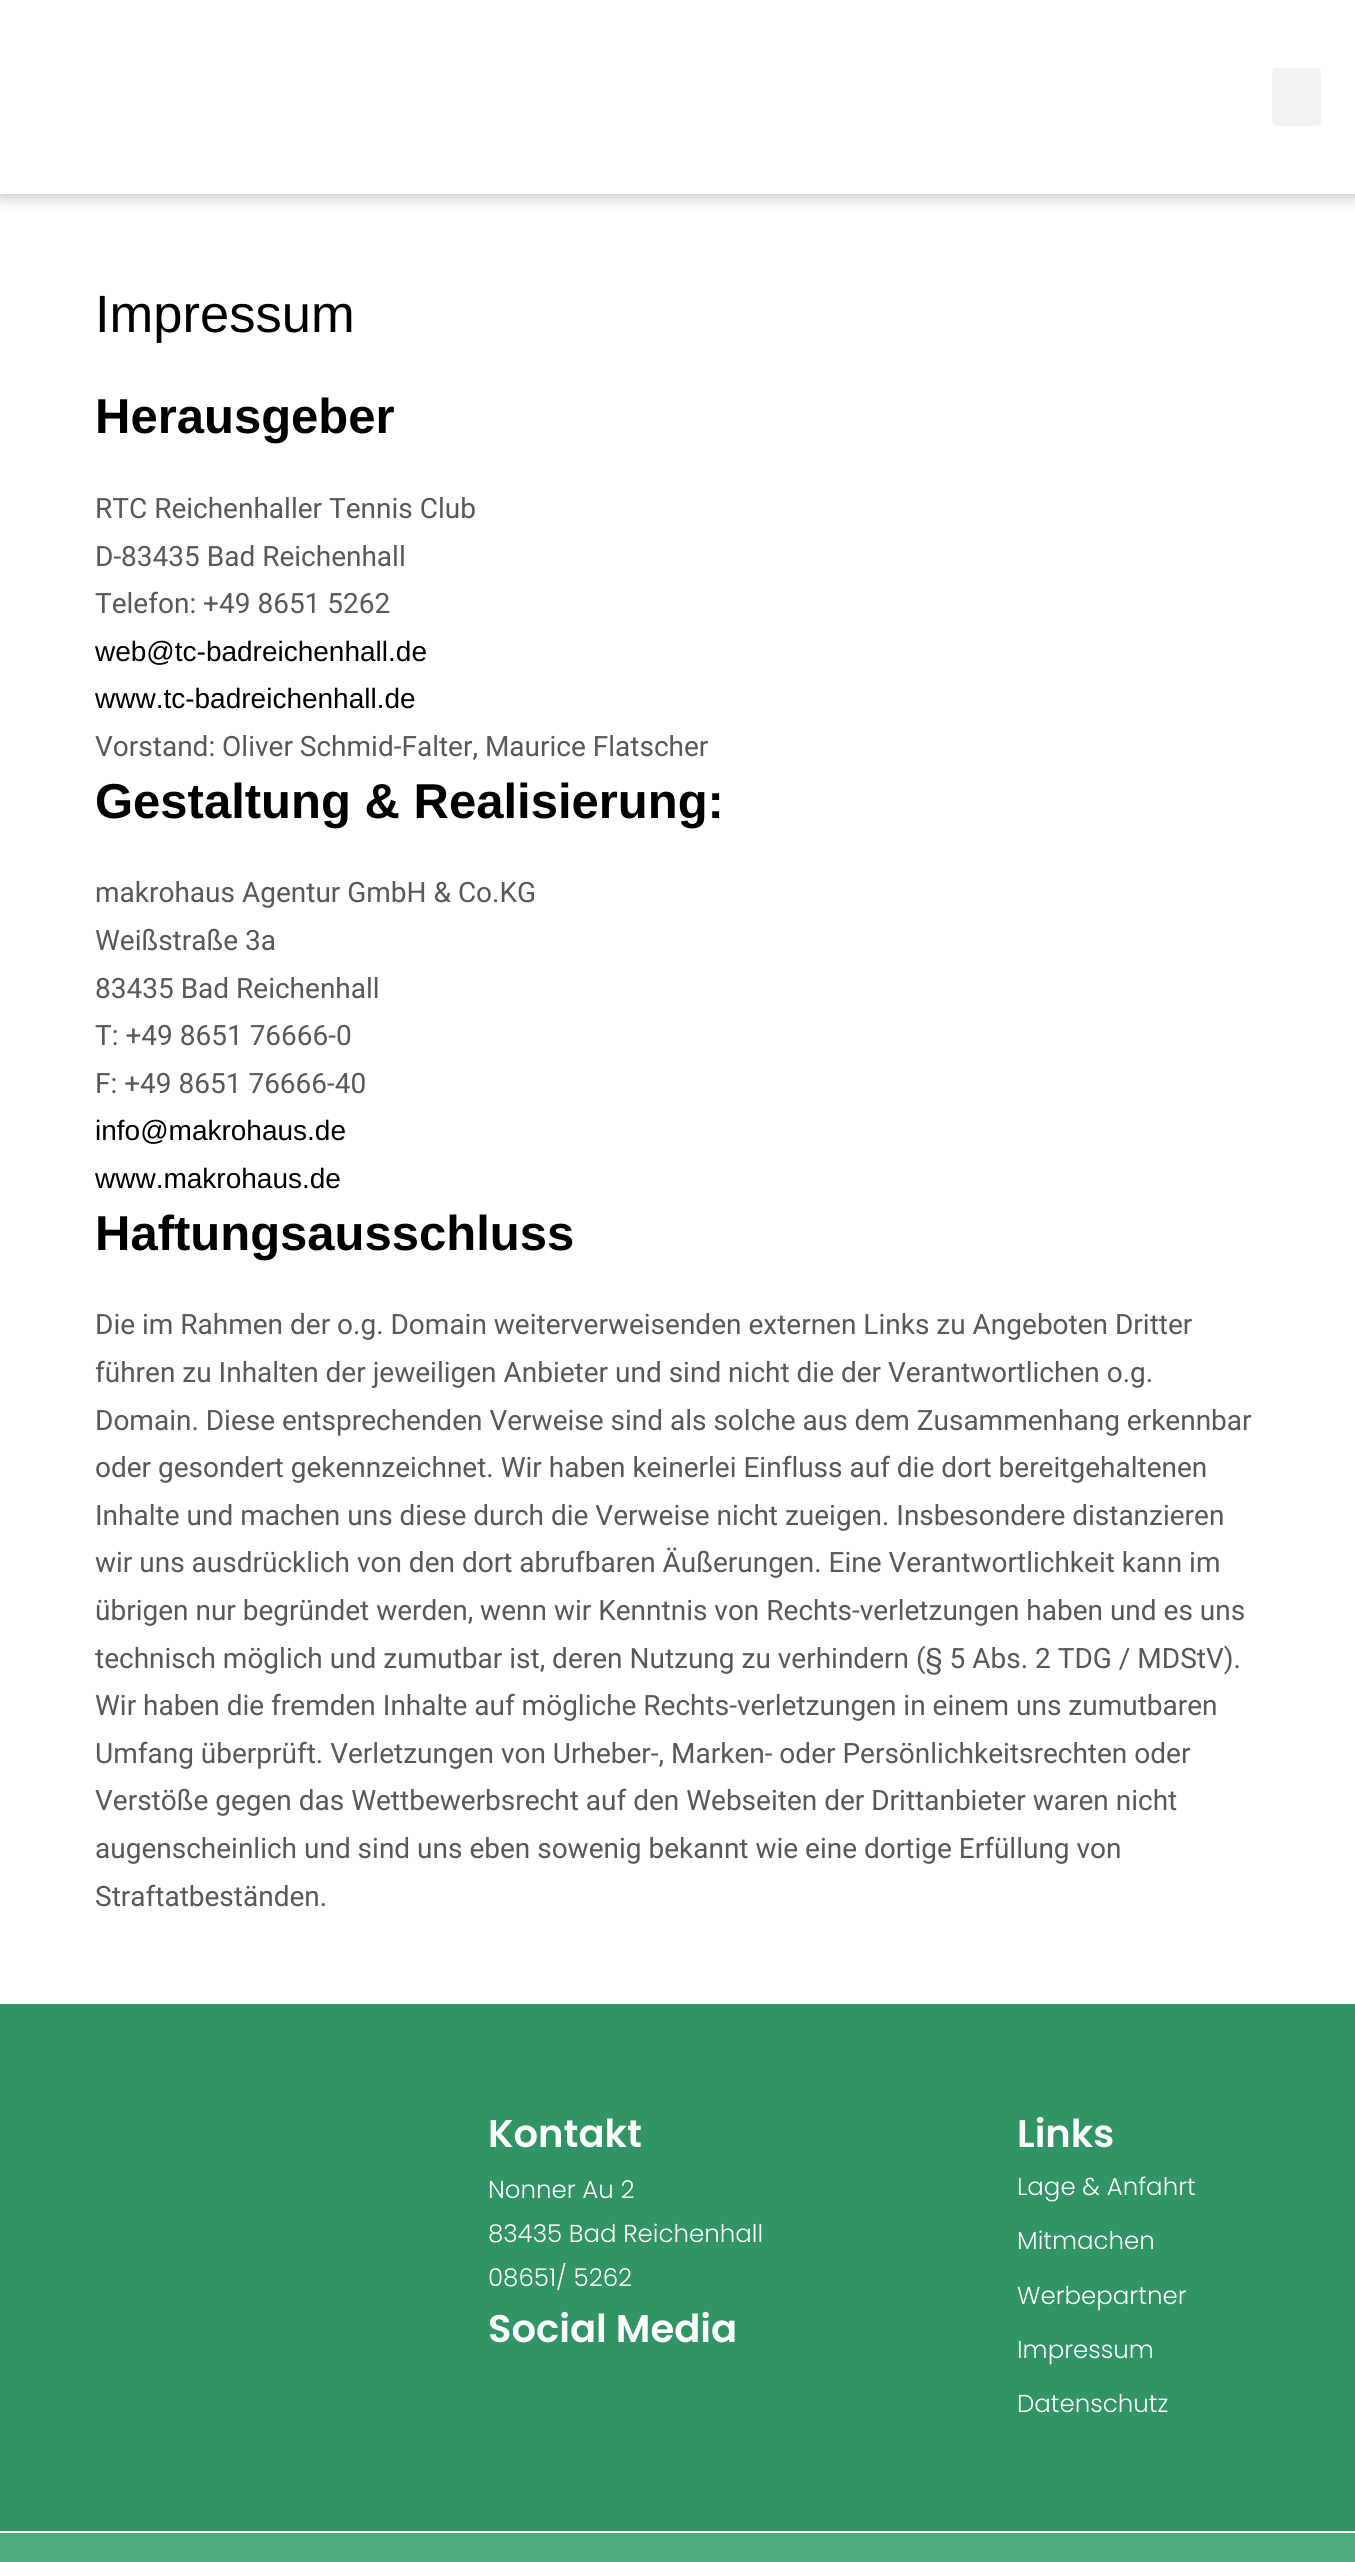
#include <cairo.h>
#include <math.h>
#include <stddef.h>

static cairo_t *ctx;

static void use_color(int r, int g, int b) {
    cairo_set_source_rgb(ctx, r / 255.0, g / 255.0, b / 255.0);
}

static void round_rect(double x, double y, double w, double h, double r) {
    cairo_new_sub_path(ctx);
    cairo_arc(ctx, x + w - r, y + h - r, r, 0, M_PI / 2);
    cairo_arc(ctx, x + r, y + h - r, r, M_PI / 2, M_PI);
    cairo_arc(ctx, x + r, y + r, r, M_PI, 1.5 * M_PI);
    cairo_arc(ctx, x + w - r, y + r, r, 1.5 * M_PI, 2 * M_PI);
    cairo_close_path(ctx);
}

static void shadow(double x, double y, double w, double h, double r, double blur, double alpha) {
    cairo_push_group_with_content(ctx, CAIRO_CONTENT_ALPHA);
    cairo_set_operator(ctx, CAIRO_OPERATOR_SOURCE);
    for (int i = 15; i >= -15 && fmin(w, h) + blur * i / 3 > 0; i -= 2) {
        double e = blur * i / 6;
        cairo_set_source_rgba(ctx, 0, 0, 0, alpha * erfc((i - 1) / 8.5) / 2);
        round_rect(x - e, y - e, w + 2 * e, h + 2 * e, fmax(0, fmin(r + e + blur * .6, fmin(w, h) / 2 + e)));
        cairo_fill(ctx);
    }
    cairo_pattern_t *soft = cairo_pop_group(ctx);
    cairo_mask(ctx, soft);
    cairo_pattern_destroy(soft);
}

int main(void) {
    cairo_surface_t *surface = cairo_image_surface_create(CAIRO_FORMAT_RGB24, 1355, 2562);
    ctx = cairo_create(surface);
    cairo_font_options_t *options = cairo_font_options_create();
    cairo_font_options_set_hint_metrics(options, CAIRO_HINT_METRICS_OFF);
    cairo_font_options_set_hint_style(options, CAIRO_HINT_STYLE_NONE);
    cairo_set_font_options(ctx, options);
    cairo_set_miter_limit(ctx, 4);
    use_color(255, 255, 255);
    cairo_paint(ctx);
    cairo_save(ctx);
    cairo_rectangle(ctx, 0, 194, 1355, 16);
    cairo_clip(ctx);
    use_color(92, 92, 92);
    shadow(0, 0, 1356, 194, 0, 9, 0.5);
    cairo_restore(ctx);
    use_color(242, 242, 242);
    round_rect(1272, 68, 49, 58, 5);
    cairo_fill(ctx);
    cairo_select_font_face(ctx, "Liberation Sans", CAIRO_FONT_SLANT_NORMAL, CAIRO_FONT_WEIGHT_NORMAL);
    cairo_set_font_size(ctx, 52.5);
    use_color(0, 0, 0);
    cairo_move_to(ctx, 95, 332);
    cairo_show_text(ctx, "Impressum");
    cairo_select_font_face(ctx, "Liberation Sans", CAIRO_FONT_SLANT_NORMAL, CAIRO_FONT_WEIGHT_BOLD);
    cairo_set_font_size(ctx, 49);
    cairo_move_to(ctx, 95, 433);
    cairo_show_text(ctx, "Herausgeber");
    cairo_select_font_face(ctx, "Roboto", CAIRO_FONT_SLANT_NORMAL, CAIRO_FONT_WEIGHT_NORMAL);
    cairo_set_font_size(ctx, 28);
    use_color(88, 88, 88);
    cairo_move_to(ctx, 95, 518);
    cairo_show_text(ctx, "RTC Reichenhaller Tennis Club");
    cairo_move_to(ctx, 95, 566);
    cairo_show_text(ctx, "D-83435 Bad Reichenhall");
    cairo_move_to(ctx, 95, 613);
    cairo_show_text(ctx, "Telefon: +49 8651 5262");
    cairo_select_font_face(ctx, "Liberation Sans", CAIRO_FONT_SLANT_NORMAL, CAIRO_FONT_WEIGHT_NORMAL);
    use_color(0, 0, 0);
    cairo_move_to(ctx, 95, 661);
    cairo_show_text(ctx, "web@tc-badreichenhall.de");
    cairo_move_to(ctx, 95, 708);
    cairo_show_text(ctx, "www.tc-badreichenhall.de");
    cairo_select_font_face(ctx, "Roboto", CAIRO_FONT_SLANT_NORMAL, CAIRO_FONT_WEIGHT_NORMAL);
    use_color(88, 88, 88);
    cairo_move_to(ctx, 95, 756);
    cairo_show_text(ctx, "Vorstand: Oliver Schmid-Falter, Maurice Flatscher");
    cairo_select_font_face(ctx, "Liberation Sans", CAIRO_FONT_SLANT_NORMAL, CAIRO_FONT_WEIGHT_BOLD);
    cairo_set_font_size(ctx, 49);
    use_color(0, 0, 0);
    cairo_move_to(ctx, 95, 818);
    cairo_show_text(ctx, "Gestaltung & Realisierung:");
    cairo_select_font_face(ctx, "Roboto", CAIRO_FONT_SLANT_NORMAL, CAIRO_FONT_WEIGHT_NORMAL);
    cairo_set_font_size(ctx, 28);
    use_color(88, 88, 88);
    cairo_move_to(ctx, 95, 902);
    cairo_show_text(ctx, "makrohaus Agentur GmbH & Co.KG");
    cairo_move_to(ctx, 95, 950);
    cairo_show_text(ctx, "Weißstraße 3a");
    cairo_move_to(ctx, 95, 998);
    cairo_show_text(ctx, "83435 Bad Reichenhall");
    cairo_move_to(ctx, 95, 1045);
    cairo_show_text(ctx, "T: +49 8651 76666-0");
    cairo_move_to(ctx, 95, 1093);
    cairo_show_text(ctx, "F: +49 8651 76666-40");
    cairo_select_font_face(ctx, "Liberation Sans", CAIRO_FONT_SLANT_NORMAL, CAIRO_FONT_WEIGHT_NORMAL);
    use_color(0, 0, 0);
    cairo_move_to(ctx, 95, 1140);
    cairo_show_text(ctx, "info@makrohaus.de");
    cairo_move_to(ctx, 95, 1188);
    cairo_show_text(ctx, "www.makrohaus.de");
    cairo_select_font_face(ctx, "Liberation Sans", CAIRO_FONT_SLANT_NORMAL, CAIRO_FONT_WEIGHT_BOLD);
    cairo_set_font_size(ctx, 49);
    cairo_move_to(ctx, 95, 1250);
    cairo_show_text(ctx, "Haftungsausschluss");
    cairo_select_font_face(ctx, "Roboto", CAIRO_FONT_SLANT_NORMAL, CAIRO_FONT_WEIGHT_NORMAL);
    cairo_set_font_size(ctx, 28);
    use_color(88, 88, 88);
    cairo_move_to(ctx, 95, 1334);
    cairo_show_text(ctx, "Die im Rahmen der o.g. Domain weiterverweisenden externen Links zu Angeboten Dritter");
    cairo_move_to(ctx, 95, 1382);
    cairo_show_text(ctx, "führen zu Inhalten der jeweiligen Anbieter und sind nicht die der Verantwortlichen o.g.");
    cairo_move_to(ctx, 95, 1430);
    cairo_show_text(ctx, "Domain. Diese entsprechenden Verweise sind als solche aus dem Zusammenhang erkennbar");
    cairo_move_to(ctx, 95, 1477);
    cairo_show_text(ctx, "oder gesondert gekennzeichnet. Wir haben keinerlei Einfluss auf die dort bereitgehaltenen");
    cairo_move_to(ctx, 95, 1525);
    cairo_show_text(ctx, "Inhalte und machen uns diese durch die Verweise nicht zueigen. Insbesondere distanzieren");
    cairo_move_to(ctx, 95, 1572);
    cairo_show_text(ctx, "wir uns ausdrücklich von den dort abrufbaren Äußerungen. Eine Verantwortlichkeit kann im");
    cairo_move_to(ctx, 95, 1620);
    cairo_show_text(ctx, "übrigen nur begründet werden, wenn wir Kenntnis von Rechts-verletzungen haben und es uns");
    cairo_move_to(ctx, 95, 1668);
    cairo_show_text(ctx, "technisch möglich und zumutbar ist, deren Nutzung zu verhindern (§ 5 Abs. 2 TDG / MDStV).");
    cairo_move_to(ctx, 95, 1715);
    cairo_show_text(ctx, "Wir haben die fremden Inhalte auf mögliche Rechts-verletzungen in einem uns zumutbaren");
    cairo_move_to(ctx, 95, 1763);
    cairo_show_text(ctx, "Umfang überprüft. Verletzungen von Urheber-, Marken- oder Persönlichkeitsrechten oder");
    cairo_move_to(ctx, 95, 1810);
    cairo_show_text(ctx, "Verstöße gegen das Wettbewerbsrecht auf den Webseiten der Drittanbieter waren nicht");
    cairo_move_to(ctx, 95, 1858);
    cairo_show_text(ctx, "augenscheinlich und sind uns eben sowenig bekannt wie eine dortige Erfüllung von");
    cairo_move_to(ctx, 95, 1906);
    cairo_show_text(ctx, "Straftatbeständen.");
    use_color(49, 148, 100);
    cairo_rectangle(ctx, 0, 2004, 1355, 527);
    cairo_fill(ctx);
    cairo_select_font_face(ctx, "Poppins SemiBold", CAIRO_FONT_SLANT_NORMAL, CAIRO_FONT_WEIGHT_NORMAL);
    cairo_set_font_size(ctx, 38.5);
    use_color(255, 255, 255);
    cairo_move_to(ctx, 488, 2147);
    cairo_show_text(ctx, "Kontakt");
    cairo_select_font_face(ctx, "Poppins Light", CAIRO_FONT_SLANT_NORMAL, CAIRO_FONT_WEIGHT_NORMAL);
    cairo_set_font_size(ctx, 24.5);
    cairo_move_to(ctx, 488, 2198);
    cairo_show_text(ctx, "Nonner Au 2");
    cairo_move_to(ctx, 488, 2242);
    cairo_show_text(ctx, "83435 Bad Reichenhall");
    cairo_move_to(ctx, 488, 2286);
    cairo_show_text(ctx, "08651/ 5262");
    cairo_select_font_face(ctx, "Poppins SemiBold", CAIRO_FONT_SLANT_NORMAL, CAIRO_FONT_WEIGHT_NORMAL);
    cairo_set_font_size(ctx, 38.5);
    cairo_move_to(ctx, 488, 2342);
    cairo_show_text(ctx, "Social Media");
    cairo_move_to(ctx, 1017, 2147);
    cairo_show_text(ctx, "Links");
    cairo_select_font_face(ctx, "Poppins Light", CAIRO_FONT_SLANT_NORMAL, CAIRO_FONT_WEIGHT_NORMAL);
    cairo_set_font_size(ctx, 24.5);
    cairo_move_to(ctx, 1017, 2195);
    cairo_show_text(ctx, "Lage & Anfahrt");
    cairo_move_to(ctx, 1017, 2249);
    cairo_show_text(ctx, "Mitmachen");
    cairo_move_to(ctx, 1017, 2304);
    cairo_show_text(ctx, "Werbepartner");
    cairo_move_to(ctx, 1017, 2358);
    cairo_show_text(ctx, "Impressum");
    cairo_move_to(ctx, 1017, 2412);
    cairo_show_text(ctx, "Datenschutz");
    use_color(80, 172, 126);
    cairo_rectangle(ctx, 0, 2533, 1355, 29);
    cairo_fill(ctx);
    cairo_surface_write_to_png(surface, "result.png");
    cairo_font_options_destroy(options);
    cairo_destroy(ctx);
    cairo_surface_destroy(surface);
    return 0;
}
